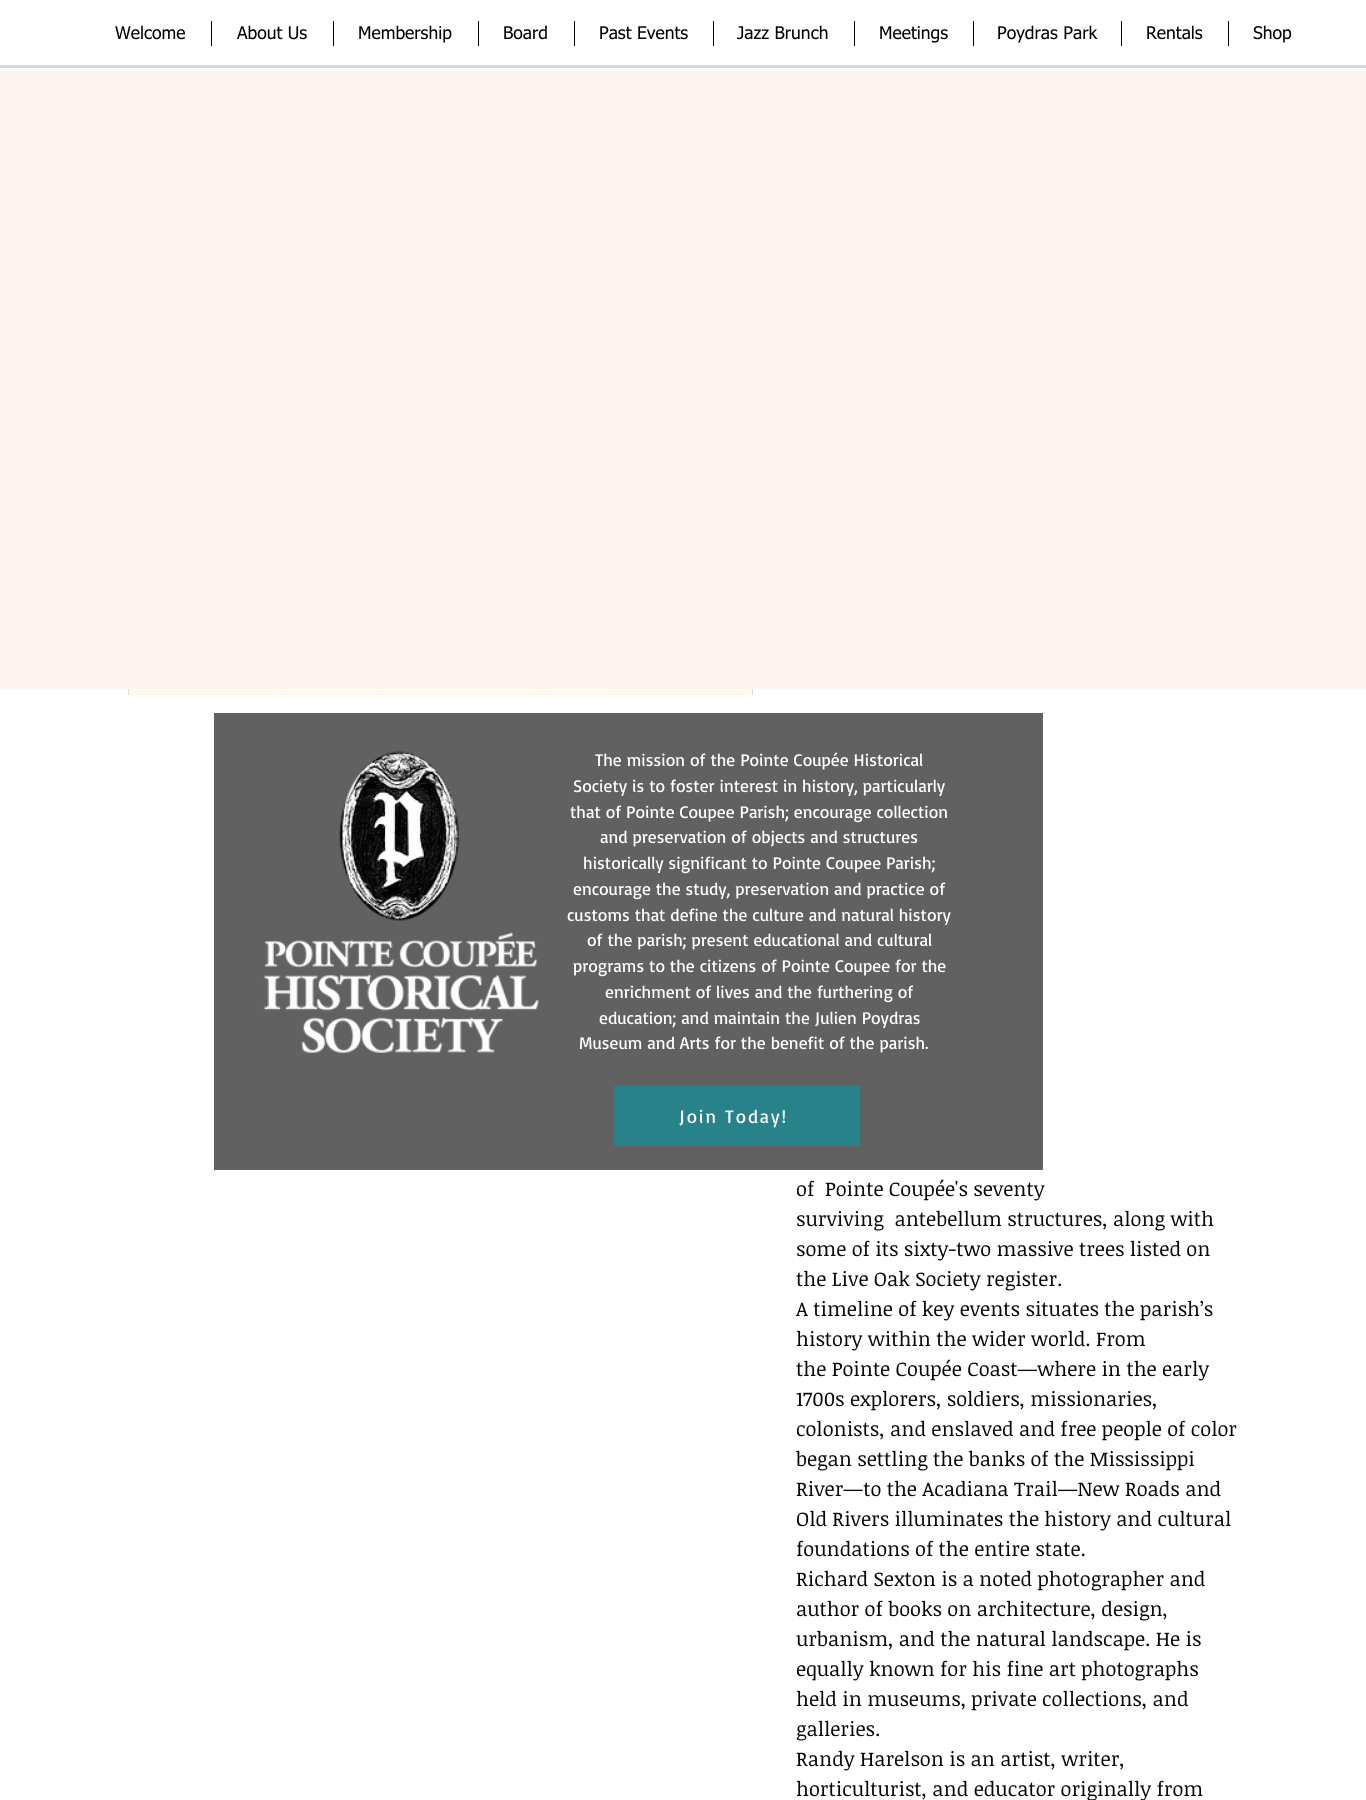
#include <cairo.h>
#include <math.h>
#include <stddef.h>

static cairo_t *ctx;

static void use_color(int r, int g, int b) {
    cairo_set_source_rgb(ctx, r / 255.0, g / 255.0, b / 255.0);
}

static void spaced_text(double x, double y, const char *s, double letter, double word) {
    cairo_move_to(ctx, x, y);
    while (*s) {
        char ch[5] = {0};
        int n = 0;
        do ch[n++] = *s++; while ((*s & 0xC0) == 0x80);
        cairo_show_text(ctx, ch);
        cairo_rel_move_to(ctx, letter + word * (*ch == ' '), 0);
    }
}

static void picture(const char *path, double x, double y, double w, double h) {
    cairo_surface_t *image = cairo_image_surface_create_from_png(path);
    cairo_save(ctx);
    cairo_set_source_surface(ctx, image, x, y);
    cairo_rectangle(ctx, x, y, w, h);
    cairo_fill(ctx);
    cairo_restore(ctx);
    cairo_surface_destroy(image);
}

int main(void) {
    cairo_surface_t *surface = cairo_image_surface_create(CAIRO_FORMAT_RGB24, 1366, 1800);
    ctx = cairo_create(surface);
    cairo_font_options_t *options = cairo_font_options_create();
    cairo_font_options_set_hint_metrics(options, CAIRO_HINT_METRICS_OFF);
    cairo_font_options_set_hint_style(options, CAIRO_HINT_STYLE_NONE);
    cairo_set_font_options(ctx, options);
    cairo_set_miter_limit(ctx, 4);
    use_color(255, 255, 255);
    cairo_paint(ctx);
    cairo_select_font_face(ctx, "tahoma", CAIRO_FONT_SLANT_NORMAL, CAIRO_FONT_WEIGHT_NORMAL);
    cairo_set_font_size(ctx, 17.5);
    use_color(0, 0, 0);
    cairo_move_to(ctx, 115, 39);
    cairo_show_text(ctx, "Welcome");
    cairo_rectangle(ctx, 211, 21, 1, 25);
    cairo_fill(ctx);
    cairo_move_to(ctx, 237, 39);
    cairo_show_text(ctx, "About Us");
    cairo_rectangle(ctx, 333, 21, 1, 25);
    cairo_fill(ctx);
    cairo_move_to(ctx, 358, 39);
    cairo_show_text(ctx, "Membership");
    cairo_rectangle(ctx, 478, 21, 1, 25);
    cairo_fill(ctx);
    cairo_move_to(ctx, 503, 39);
    cairo_show_text(ctx, "Board");
    cairo_rectangle(ctx, 574, 21, 1, 25);
    cairo_fill(ctx);
    cairo_move_to(ctx, 599, 39);
    cairo_show_text(ctx, "Past Events");
    cairo_rectangle(ctx, 713, 21, 1, 25);
    cairo_fill(ctx);
    cairo_move_to(ctx, 737, 39);
    cairo_show_text(ctx, "Jazz Brunch");
    cairo_rectangle(ctx, 854, 21, 1, 25);
    cairo_fill(ctx);
    cairo_move_to(ctx, 879, 39);
    cairo_show_text(ctx, "Meetings");
    cairo_rectangle(ctx, 973, 21, 1, 25);
    cairo_fill(ctx);
    cairo_move_to(ctx, 997, 39);
    cairo_show_text(ctx, "Poydras Park");
    cairo_rectangle(ctx, 1121, 21, 1, 25);
    cairo_fill(ctx);
    cairo_move_to(ctx, 1146, 39);
    cairo_show_text(ctx, "Rentals");
    cairo_rectangle(ctx, 1228, 21, 1, 25);
    cairo_fill(ctx);
    cairo_move_to(ctx, 1253, 39);
    cairo_show_text(ctx, "Shop");
    use_color(215, 215, 215);
    cairo_rectangle(ctx, 0, 65, 1366, 3);
    cairo_fill(ctx);
    cairo_rectangle(ctx, 128.5, 153.5, 624, 542);
    cairo_set_line_width(ctx, 1);
    cairo_stroke(ctx);
    use_color(255, 245, 240);
    cairo_rectangle(ctx, 0, 71, 1366, 618);
    cairo_fill(ctx);
    use_color(255, 255, 255);
    cairo_rectangle(ctx, 128, 695, 625, 1);
    cairo_fill(ctx);
    use_color(97, 97, 97);
    cairo_rectangle(ctx, 214, 713, 829, 457);
    cairo_fill(ctx);
    picture("img1.png", 263, 751, 276, 302);
    cairo_select_font_face(ctx, "Basic", CAIRO_FONT_SLANT_NORMAL, CAIRO_FONT_WEIGHT_NORMAL);
    use_color(255, 255, 255);
    cairo_move_to(ctx, 595, 766);
    cairo_show_text(ctx, "The mission of the Pointe Coupée Historical");
    cairo_move_to(ctx, 573, 792);
    cairo_show_text(ctx, "Society is to foster interest in history, particularly");
    cairo_move_to(ctx, 570, 818);
    cairo_show_text(ctx, "that of Pointe Coupee Parish; encourage collection");
    cairo_move_to(ctx, 600, 843);
    cairo_show_text(ctx, "and preservation of objects and structures");
    cairo_move_to(ctx, 583, 869);
    cairo_show_text(ctx, "historically significant to Pointe Coupee Parish;");
    cairo_move_to(ctx, 573, 895);
    cairo_show_text(ctx, "encourage the study, preservation and practice of");
    cairo_move_to(ctx, 567, 921);
    cairo_show_text(ctx, "customs that define the culture and natural history");
    cairo_move_to(ctx, 587, 946);
    cairo_show_text(ctx, "of the parish; present educational and cultural");
    cairo_move_to(ctx, 573, 972);
    cairo_show_text(ctx, "programs to the citizens of Pointe Coupee for the");
    cairo_move_to(ctx, 605, 998);
    cairo_show_text(ctx, "enrichment of lives and the furthering of");
    cairo_move_to(ctx, 599, 1024);
    cairo_show_text(ctx, "education; and maintain the Julien Poydras");
    cairo_move_to(ctx, 579, 1049);
    cairo_show_text(ctx, "Museum and Arts for the benefit of the parish.");
    use_color(39, 131, 137);
    cairo_rectangle(ctx, 614, 1086, 246, 60);
    cairo_fill(ctx);
    cairo_set_font_size(ctx, 18.75);
    use_color(255, 255, 255);
    spaced_text(679, 1123, "Join Today!", 1.9, 0);
    picture("img2.png", 128, 689, 624, 6);
    cairo_select_font_face(ctx, "Noticia Text", CAIRO_FONT_SLANT_NORMAL, CAIRO_FONT_WEIGHT_NORMAL);
    cairo_set_font_size(ctx, 20);
    use_color(8, 8, 8);
    cairo_move_to(ctx, 796, 1196);
    cairo_show_text(ctx, "of  Pointe Coupée's seventy");
    cairo_move_to(ctx, 796, 1226);
    cairo_show_text(ctx, "surviving  antebellum structures, along with");
    cairo_move_to(ctx, 796, 1256);
    cairo_show_text(ctx, "some of its sixty-two massive trees listed on");
    cairo_move_to(ctx, 796, 1286);
    cairo_show_text(ctx, "the Live Oak Society register.");
    cairo_move_to(ctx, 796, 1316);
    cairo_show_text(ctx, "A timeline of key events situates the parish’s");
    cairo_move_to(ctx, 796, 1346);
    cairo_show_text(ctx, "history within the wider world. From");
    cairo_move_to(ctx, 796, 1376);
    cairo_show_text(ctx, "the Pointe Coupée Coast—where in the early");
    cairo_move_to(ctx, 796, 1406);
    cairo_show_text(ctx, "1700s explorers, soldiers, missionaries,");
    cairo_move_to(ctx, 796, 1436);
    cairo_show_text(ctx, "colonists, and enslaved and free people of color");
    cairo_move_to(ctx, 796, 1466);
    cairo_show_text(ctx, "began settling the banks of the Mississippi");
    cairo_move_to(ctx, 796, 1496);
    cairo_show_text(ctx, "River—to the Acadiana Trail—New Roads and");
    cairo_move_to(ctx, 796, 1526);
    cairo_show_text(ctx, "Old Rivers illuminates the history and cultural");
    cairo_move_to(ctx, 796, 1556);
    cairo_show_text(ctx, "foundations of the entire state.");
    cairo_move_to(ctx, 796, 1586);
    cairo_show_text(ctx, "Richard Sexton is a noted photographer and");
    cairo_move_to(ctx, 796, 1616);
    cairo_show_text(ctx, "author of books on architecture, design,");
    cairo_move_to(ctx, 796, 1646);
    cairo_show_text(ctx, "urbanism, and the natural landscape. He is");
    cairo_move_to(ctx, 796, 1676);
    cairo_show_text(ctx, "equally known for his fine art photographs");
    cairo_move_to(ctx, 796, 1706);
    cairo_show_text(ctx, "held in museums, private collections, and");
    cairo_move_to(ctx, 796, 1736);
    cairo_show_text(ctx, "galleries.");
    cairo_move_to(ctx, 796, 1766);
    cairo_show_text(ctx, "Randy Harelson is an artist, writer,");
    cairo_move_to(ctx, 796, 1796);
    cairo_show_text(ctx, "horticulturist, and educator originally from");
    cairo_surface_write_to_png(surface, "result.png");
    cairo_font_options_destroy(options);
    cairo_destroy(ctx);
    cairo_surface_destroy(surface);
    return 0;
}
